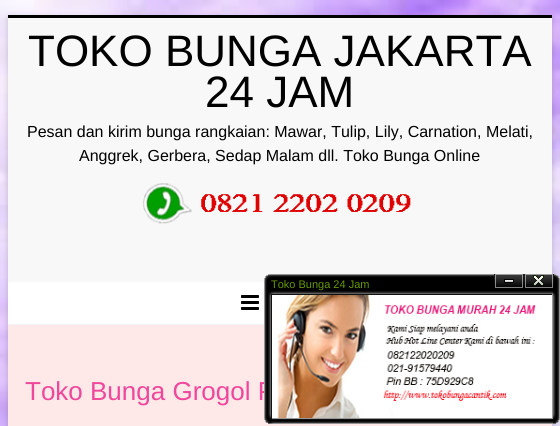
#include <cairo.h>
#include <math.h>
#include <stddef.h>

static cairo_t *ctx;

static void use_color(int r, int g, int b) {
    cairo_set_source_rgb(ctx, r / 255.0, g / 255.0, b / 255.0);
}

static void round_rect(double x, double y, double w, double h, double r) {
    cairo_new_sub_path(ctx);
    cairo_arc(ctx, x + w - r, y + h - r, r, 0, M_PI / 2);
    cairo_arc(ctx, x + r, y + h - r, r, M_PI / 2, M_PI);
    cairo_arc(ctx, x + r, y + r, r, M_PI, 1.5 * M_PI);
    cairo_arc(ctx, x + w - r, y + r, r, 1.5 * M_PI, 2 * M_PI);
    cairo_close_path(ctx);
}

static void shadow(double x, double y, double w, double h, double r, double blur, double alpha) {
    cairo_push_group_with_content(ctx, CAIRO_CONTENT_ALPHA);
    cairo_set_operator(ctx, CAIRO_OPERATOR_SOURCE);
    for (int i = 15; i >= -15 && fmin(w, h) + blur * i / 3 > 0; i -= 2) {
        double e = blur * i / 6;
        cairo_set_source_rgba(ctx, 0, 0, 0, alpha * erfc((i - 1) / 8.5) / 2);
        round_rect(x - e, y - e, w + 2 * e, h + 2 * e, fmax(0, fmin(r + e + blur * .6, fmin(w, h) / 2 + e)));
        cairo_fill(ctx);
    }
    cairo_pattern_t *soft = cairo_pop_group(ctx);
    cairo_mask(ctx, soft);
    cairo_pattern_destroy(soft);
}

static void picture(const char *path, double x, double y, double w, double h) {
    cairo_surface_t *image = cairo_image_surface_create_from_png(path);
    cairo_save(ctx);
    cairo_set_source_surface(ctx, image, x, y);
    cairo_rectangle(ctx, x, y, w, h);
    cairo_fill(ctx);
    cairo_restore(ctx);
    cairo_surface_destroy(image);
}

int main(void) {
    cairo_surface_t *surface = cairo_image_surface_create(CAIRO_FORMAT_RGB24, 560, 426);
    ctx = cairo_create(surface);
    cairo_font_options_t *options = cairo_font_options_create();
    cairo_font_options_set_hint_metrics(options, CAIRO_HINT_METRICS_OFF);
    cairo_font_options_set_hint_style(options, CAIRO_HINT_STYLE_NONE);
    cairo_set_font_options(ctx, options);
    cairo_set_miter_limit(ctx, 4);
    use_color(255, 255, 255);
    cairo_paint(ctx);
    picture("img1.png", 0, 0, 560, 426);
    use_color(100, 100, 100);
    shadow(8, 17, 544, 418, 0, 3, 0.3);
    use_color(255, 232, 232);
    cairo_rectangle(ctx, 8, 325, 544, 101);
    cairo_fill(ctx);
    use_color(0, 0, 0);
    cairo_rectangle(ctx, 8, 15, 544, 3);
    cairo_fill(ctx);
    use_color(248, 248, 248);
    cairo_rectangle(ctx, 8, 18, 544, 264);
    cairo_fill(ctx);
    use_color(242, 242, 242);
    cairo_rectangle(ctx, 8, 324, 256, 1);
    cairo_fill(ctx);
    cairo_select_font_face(ctx, "Liberation Sans", CAIRO_FONT_SLANT_NORMAL, CAIRO_FONT_WEIGHT_NORMAL);
    cairo_set_font_size(ctx, 44);
    use_color(0, 0, 0);
    cairo_move_to(ctx, 28, 66);
    cairo_show_text(ctx, "TOKO BUNGA JAKARTA");
    cairo_move_to(ctx, 205, 107);
    cairo_show_text(ctx, "24 JAM");
    cairo_set_font_size(ctx, 16);
    cairo_move_to(ctx, 27, 137);
    cairo_show_text(ctx, "Pesan dan kirim bunga rangkaian: Mawar, Tulip, Lily, Carnation, Melati,");
    cairo_move_to(ctx, 79, 161);
    cairo_show_text(ctx, "Anggrek, Gerbera, Sedap Malam dll. Toko Bunga Online");
    picture("img2.png", 142, 183, 269, 41);
    use_color(255, 255, 255);
    cairo_rectangle(ctx, 8, 282, 256, 42);
    cairo_fill(ctx);
    picture("img3.png", 241, 295, 18, 15);
    cairo_set_font_size(ctx, 26);
    use_color(239, 71, 155);
    cairo_move_to(ctx, 25, 400);
    cairo_show_text(ctx, "Toko Bunga Grogol P");
    picture("img4.png", 553, 274, 7, 150);
    picture("img5.png", 264, 274, 289, 150);
    cairo_set_font_size(ctx, 11);
    use_color(102, 153, 0);
    cairo_move_to(ctx, 271, 288);
    cairo_show_text(ctx, "Toko Bunga 24 Jam");
    picture("img6.png", 494, 274, 30, 14);
    picture("img7.png", 524, 274, 30, 14);
    use_color(17, 17, 17);
    cairo_rectangle(ctx, 271, 294, 282, 1);
    cairo_fill(ctx);
    use_color(153, 153, 153);
    cairo_rectangle(ctx, 552, 294, 1, 125);
    cairo_fill(ctx);
    cairo_rectangle(ctx, 271, 418, 282, 1);
    cairo_fill(ctx);
    use_color(17, 17, 17);
    cairo_rectangle(ctx, 271, 294, 1, 125);
    cairo_fill(ctx);
    picture("img8.png", 272, 295, 280, 123);
    cairo_surface_write_to_png(surface, "result.png");
    cairo_font_options_destroy(options);
    cairo_destroy(ctx);
    cairo_surface_destroy(surface);
    return 0;
}
